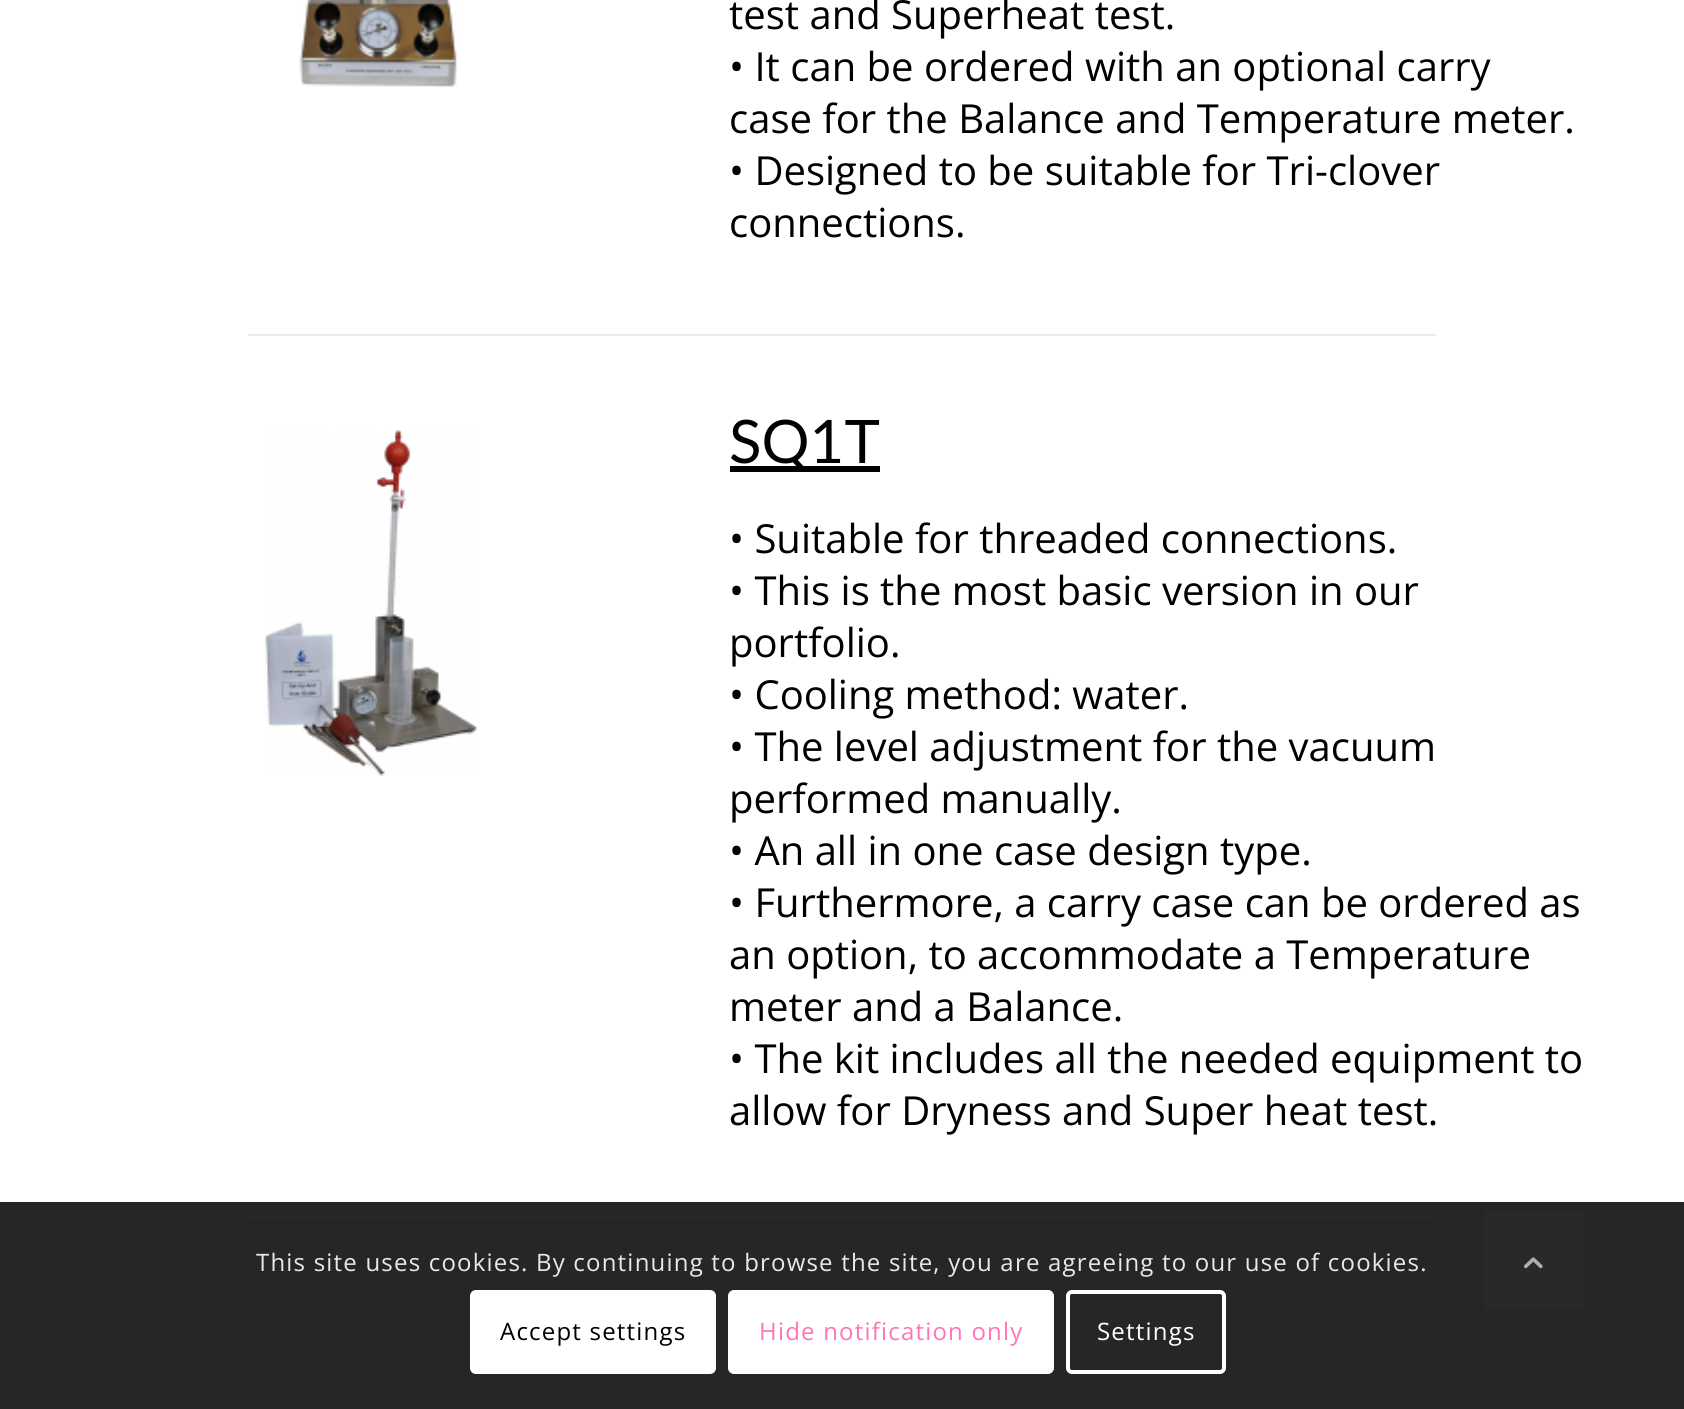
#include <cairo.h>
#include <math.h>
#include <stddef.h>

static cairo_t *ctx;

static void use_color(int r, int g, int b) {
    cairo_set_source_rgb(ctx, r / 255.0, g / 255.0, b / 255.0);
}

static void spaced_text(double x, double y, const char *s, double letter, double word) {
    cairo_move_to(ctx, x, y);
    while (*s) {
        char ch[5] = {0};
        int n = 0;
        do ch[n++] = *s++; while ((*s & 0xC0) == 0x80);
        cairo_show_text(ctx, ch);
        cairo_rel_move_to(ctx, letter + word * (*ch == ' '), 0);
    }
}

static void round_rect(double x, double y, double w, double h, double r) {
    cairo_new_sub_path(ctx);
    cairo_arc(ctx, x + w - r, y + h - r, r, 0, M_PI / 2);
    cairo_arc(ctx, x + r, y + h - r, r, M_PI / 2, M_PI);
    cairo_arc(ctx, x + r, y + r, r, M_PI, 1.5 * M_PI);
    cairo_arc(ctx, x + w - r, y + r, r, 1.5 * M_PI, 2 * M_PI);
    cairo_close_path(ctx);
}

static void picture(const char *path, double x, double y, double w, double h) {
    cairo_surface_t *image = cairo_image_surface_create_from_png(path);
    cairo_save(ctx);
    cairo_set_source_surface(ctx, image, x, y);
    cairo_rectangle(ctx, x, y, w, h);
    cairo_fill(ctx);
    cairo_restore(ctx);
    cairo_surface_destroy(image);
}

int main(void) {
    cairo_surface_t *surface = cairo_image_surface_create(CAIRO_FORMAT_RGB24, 1684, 1409);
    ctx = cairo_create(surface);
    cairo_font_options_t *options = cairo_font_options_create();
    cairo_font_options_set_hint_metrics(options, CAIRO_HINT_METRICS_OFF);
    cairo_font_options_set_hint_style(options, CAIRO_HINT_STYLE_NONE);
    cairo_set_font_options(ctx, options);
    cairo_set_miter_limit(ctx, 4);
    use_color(38, 38, 38);
    cairo_paint(ctx);
    use_color(255, 255, 255);
    cairo_rectangle(ctx, 0, 0, 1684, 1202);
    cairo_fill(ctx);
    picture("img1.png", 299, 0, 158, 88);
    cairo_select_font_face(ctx, "Open Sans", CAIRO_FONT_SLANT_NORMAL, CAIRO_FONT_WEIGHT_NORMAL);
    cairo_set_font_size(ctx, 40);
    use_color(0, 0, 0);
    cairo_move_to(ctx, 729, 29);
    cairo_show_text(ctx, "test and Superheat test.");
    cairo_move_to(ctx, 729, 81);
    cairo_show_text(ctx, "• It can be ordered with an optional carry");
    cairo_move_to(ctx, 729, 133);
    cairo_show_text(ctx, "case for the Balance and Temperature meter.");
    cairo_move_to(ctx, 729, 185);
    cairo_show_text(ctx, "• Designed to be suitable for Tri-clover");
    cairo_move_to(ctx, 729, 237);
    cairo_show_text(ctx, "connections.");
    use_color(235, 235, 235);
    cairo_rectangle(ctx, 248, 334, 1188, 2);
    cairo_fill(ctx);
    picture("img2.png", 265, 430, 212, 346);
    use_color(0, 0, 0);
    cairo_rectangle(ctx, 730, 466, 150, 6);
    cairo_fill(ctx);
    cairo_select_font_face(ctx, "Lato", CAIRO_FONT_SLANT_NORMAL, CAIRO_FONT_WEIGHT_NORMAL);
    cairo_set_font_size(ctx, 60);
    cairo_move_to(ctx, 729, 463);
    cairo_show_text(ctx, "SQ1T");
    cairo_select_font_face(ctx, "Open Sans", CAIRO_FONT_SLANT_NORMAL, CAIRO_FONT_WEIGHT_NORMAL);
    cairo_set_font_size(ctx, 40);
    cairo_move_to(ctx, 729, 553);
    cairo_show_text(ctx, "• Suitable for threaded connections.");
    cairo_move_to(ctx, 729, 605);
    cairo_show_text(ctx, "• This is the most basic version in our");
    cairo_move_to(ctx, 729, 657);
    cairo_show_text(ctx, "portfolio.");
    cairo_move_to(ctx, 729, 709);
    cairo_show_text(ctx, "• Cooling method: water.");
    cairo_move_to(ctx, 729, 761);
    cairo_show_text(ctx, "• The level adjustment for the vacuum");
    cairo_move_to(ctx, 729, 813);
    cairo_show_text(ctx, "performed manually.");
    cairo_move_to(ctx, 729, 865);
    cairo_show_text(ctx, "• An all in one case design type.");
    cairo_move_to(ctx, 729, 917);
    cairo_show_text(ctx, "• Furthermore, a carry case can be ordered as");
    cairo_move_to(ctx, 729, 969);
    cairo_show_text(ctx, "an option, to accommodate a Temperature");
    cairo_move_to(ctx, 729, 1021);
    cairo_show_text(ctx, "meter and a Balance.");
    cairo_move_to(ctx, 729, 1073);
    cairo_show_text(ctx, "• The kit includes all the needed equipment to");
    cairo_move_to(ctx, 729, 1125);
    cairo_show_text(ctx, "allow for Dryness and Super heat test.");
    use_color(35, 35, 35);
    cairo_rectangle(ctx, 248, 1222, 1188, 2);
    cairo_fill(ctx);
    cairo_set_font_size(ctx, 24);
    use_color(233, 233, 233);
    spaced_text(256, 1271, "This site uses cookies. By continuing to browse the site, you are agreeing to our use of cookies.", 1.2, 0);
    use_color(255, 255, 255);
    round_rect(470, 1290, 246, 84, 6);
    cairo_fill(ctx);
    use_color(0, 0, 0);
    spaced_text(500, 1340, "Accept settings", 1.2, 0);
    use_color(255, 255, 255);
    round_rect(730, 1292, 322, 80, 4);
    cairo_fill_preserve(ctx);
    cairo_set_line_width(ctx, 4);
    cairo_stroke(ctx);
    use_color(255, 117, 181);
    spaced_text(759, 1340, "Hide notification only", 1.2, 0);
    round_rect(1068, 1292, 156, 80, 4);
    use_color(255, 255, 255);
    cairo_stroke(ctx);
    spaced_text(1097, 1340, "Settings", 1.2, 0);
    cairo_set_source_rgba(ctx, 0.157, 0.169, 0.18, 0.7);
    round_rect(1484, 1210, 100, 100, 4);
    cairo_fill(ctx);
    picture("img3.png", 1524, 1257, 19, 12);
    cairo_surface_write_to_png(surface, "result.png");
    cairo_font_options_destroy(options);
    cairo_destroy(ctx);
    cairo_surface_destroy(surface);
    return 0;
}
